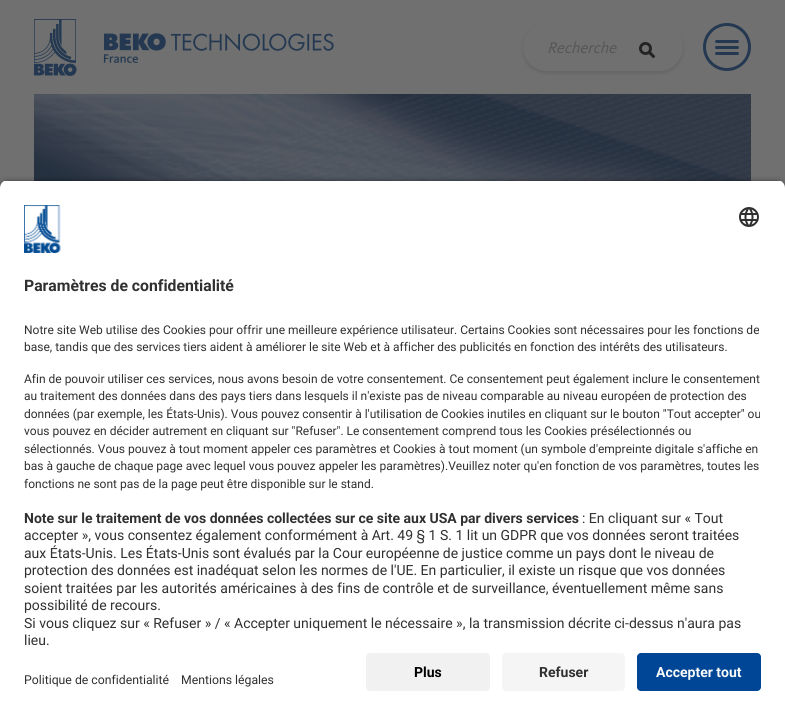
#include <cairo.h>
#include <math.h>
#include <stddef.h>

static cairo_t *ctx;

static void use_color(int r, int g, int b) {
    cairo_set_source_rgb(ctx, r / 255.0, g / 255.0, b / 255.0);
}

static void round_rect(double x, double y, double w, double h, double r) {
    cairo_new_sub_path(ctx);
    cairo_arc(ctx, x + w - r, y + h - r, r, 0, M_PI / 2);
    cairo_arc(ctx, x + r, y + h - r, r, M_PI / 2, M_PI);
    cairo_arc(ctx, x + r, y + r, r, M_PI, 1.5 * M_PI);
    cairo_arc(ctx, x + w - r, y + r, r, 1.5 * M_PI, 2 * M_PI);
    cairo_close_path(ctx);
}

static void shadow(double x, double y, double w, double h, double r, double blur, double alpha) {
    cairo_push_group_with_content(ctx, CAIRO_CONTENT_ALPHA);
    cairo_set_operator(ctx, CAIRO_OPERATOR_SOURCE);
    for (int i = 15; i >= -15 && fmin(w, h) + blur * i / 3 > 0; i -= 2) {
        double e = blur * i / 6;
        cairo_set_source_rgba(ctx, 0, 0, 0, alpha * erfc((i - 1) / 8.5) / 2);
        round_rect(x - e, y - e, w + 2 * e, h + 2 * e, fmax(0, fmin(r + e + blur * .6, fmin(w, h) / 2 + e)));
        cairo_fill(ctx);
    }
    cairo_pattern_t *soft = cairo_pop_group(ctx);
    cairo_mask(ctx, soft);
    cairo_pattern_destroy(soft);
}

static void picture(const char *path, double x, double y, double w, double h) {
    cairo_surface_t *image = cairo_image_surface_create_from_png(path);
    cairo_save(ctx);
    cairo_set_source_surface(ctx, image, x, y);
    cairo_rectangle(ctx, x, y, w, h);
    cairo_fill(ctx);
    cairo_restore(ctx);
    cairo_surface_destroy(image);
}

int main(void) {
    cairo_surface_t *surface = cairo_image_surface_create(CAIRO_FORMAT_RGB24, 785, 715);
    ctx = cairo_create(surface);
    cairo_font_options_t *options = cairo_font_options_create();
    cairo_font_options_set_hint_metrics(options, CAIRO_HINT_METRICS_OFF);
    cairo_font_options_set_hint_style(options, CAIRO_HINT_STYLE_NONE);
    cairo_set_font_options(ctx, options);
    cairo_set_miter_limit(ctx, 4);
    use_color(112, 112, 112);
    cairo_paint(ctx);
    picture("img1.png", 34, 19, 43, 57);
    picture("img2.png", 103, 33, 231, 30);
    use_color(42, 44, 47);
    shadow(523, 25, 160, 48, 24, 2, 0.2);
    use_color(112, 112, 112);
    round_rect(523, 23, 160, 48, 24);
    cairo_fill(ctx);
    cairo_select_font_face(ctx, "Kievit", CAIRO_FONT_SLANT_ITALIC, CAIRO_FONT_WEIGHT_NORMAL);
    cairo_set_font_size(ctx, 16);
    use_color(84, 85, 86);
    cairo_move_to(ctx, 547, 53);
    cairo_show_text(ctx, "Recherche");
    picture("img3.png", 639, 42, 16, 16);
    picture("img4.png", 703, 23, 48, 48);
    picture("img5.png", 34, 94, 717, 87);
    use_color(0, 0, 0);
    shadow(0, 183, 785, 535, 8, 3.5, 0.8);
    cairo_save(ctx);
    cairo_new_path(ctx);
    cairo_move_to(ctx, 8, 180);
    cairo_line_to(ctx, 777, 180);
    cairo_curve_to(ctx, 781.5, 180, 785, 183.5, 785, 188);
    cairo_line_to(ctx, 785, 645);
    cairo_line_to(ctx, 0, 645);
    cairo_line_to(ctx, 0, 188);
    cairo_curve_to(ctx, 0, 183.5, 3.5, 180, 8, 180);
    cairo_close_path(ctx);
    cairo_clip(ctx);
    use_color(255, 255, 255);
    cairo_rectangle(ctx, 0, 181, 785, 464);
    cairo_fill(ctx);
    cairo_restore(ctx);
    picture("img6.png", 24, 205, 37, 48);
    picture("img7.png", 739, 207, 20, 20);
    cairo_select_font_face(ctx, "Roboto", CAIRO_FONT_SLANT_NORMAL, CAIRO_FONT_WEIGHT_BOLD);
    cairo_set_font_size(ctx, 15.75);
    use_color(48, 48, 48);
    cairo_move_to(ctx, 24, 291);
    cairo_show_text(ctx, "Paramètres de confidentialité");
    cairo_select_font_face(ctx, "Roboto", CAIRO_FONT_SLANT_NORMAL, CAIRO_FONT_WEIGHT_NORMAL);
    cairo_set_font_size(ctx, 12);
    cairo_move_to(ctx, 24, 334);
    cairo_show_text(ctx, "Notre site Web utilise des Cookies pour offrir une meilleure expérience utilisateur. Certains Cookies sont nécessaires pour les fonctions de");
    cairo_move_to(ctx, 24, 351);
    cairo_show_text(ctx, "base, tandis que des services tiers aident à améliorer le site Web et à afficher des publicités en fonction des intérêts des utilisateurs.");
    cairo_move_to(ctx, 24, 383);
    cairo_show_text(ctx, "Afin de pouvoir utiliser ces services, nous avons besoin de votre consentement. Ce consentement peut également inclure le consentement");
    cairo_move_to(ctx, 24, 400);
    cairo_show_text(ctx, "au traitement des données dans des pays tiers dans lesquels il n'existe pas de niveau comparable au niveau européen de protection des");
    cairo_move_to(ctx, 24, 418);
    cairo_show_text(ctx, "données (par exemple, les États-Unis). Vous pouvez consentir à l'utilisation de Cookies inutiles en cliquant sur le bouton \"Tout accepter\" ou");
    cairo_move_to(ctx, 24, 435);
    cairo_show_text(ctx, "vous pouvez en décider autrement en cliquant sur \"Refuser\". Le consentement comprend tous les Cookies présélectionnés ou");
    cairo_move_to(ctx, 24, 453);
    cairo_show_text(ctx, "sélectionnés. Vous pouvez à tout moment appeler ces paramètres et Cookies à tout moment (un symbole d'empreinte digitale s'affiche en");
    cairo_move_to(ctx, 24, 470);
    cairo_show_text(ctx, "bas à gauche de chaque page avec lequel vous pouvez appeler les paramètres).Veuillez noter qu'en fonction de vos paramètres, toutes les");
    cairo_move_to(ctx, 24, 488);
    cairo_show_text(ctx, "fonctions ne sont pas de la page peut être disponible sur le stand.");
    cairo_select_font_face(ctx, "Roboto", CAIRO_FONT_SLANT_NORMAL, CAIRO_FONT_WEIGHT_BOLD);
    cairo_set_font_size(ctx, 14);
    cairo_move_to(ctx, 24, 523);
    cairo_show_text(ctx, "Note sur le traitement de vos données collectées sur ce site aux USA par divers services");
    cairo_select_font_face(ctx, "Roboto", CAIRO_FONT_SLANT_NORMAL, CAIRO_FONT_WEIGHT_NORMAL);
    cairo_move_to(ctx, 582, 523);
    cairo_show_text(ctx, ": En cliquant sur « Tout");
    cairo_move_to(ctx, 24, 540);
    cairo_show_text(ctx, "accepter », vous consentez également conformément à Art. 49 § 1 S. 1 lit un GDPR que vos données seront traitées");
    cairo_move_to(ctx, 24, 558);
    cairo_show_text(ctx, "aux États-Unis. Les États-Unis sont évalués par la Cour européenne de justice comme un pays dont le niveau de");
    cairo_move_to(ctx, 24, 575);
    cairo_show_text(ctx, "protection des données est inadéquat selon les normes de l'UE. En particulier, il existe un risque que vos données");
    cairo_move_to(ctx, 24, 593);
    cairo_show_text(ctx, "soient traitées par les autorités américaines à des fins de contrôle et de surveillance, éventuellement même sans");
    cairo_move_to(ctx, 24, 610);
    cairo_show_text(ctx, "possibilité de recours.");
    cairo_move_to(ctx, 24, 628);
    cairo_show_text(ctx, "Si vous cliquez sur « Refuser » / « Accepter uniquement le nécessaire », la transmission décrite ci-dessus n'aura pas");
    cairo_move_to(ctx, 24, 645);
    cairo_show_text(ctx, "lieu.");
    use_color(255, 255, 255);
    cairo_rectangle(ctx, 0, 645, 785, 70);
    cairo_fill(ctx);
    cairo_set_font_size(ctx, 12.25);
    use_color(48, 48, 48);
    cairo_move_to(ctx, 24, 684);
    cairo_show_text(ctx, "Politique de confidentialité");
    cairo_move_to(ctx, 181, 684);
    cairo_show_text(ctx, "Mentions légales");
    use_color(242, 241, 241);
    round_rect(366, 653, 124, 38, 4);
    cairo_fill(ctx);
    cairo_select_font_face(ctx, "Roboto", CAIRO_FONT_SLANT_NORMAL, CAIRO_FONT_WEIGHT_BOLD);
    cairo_set_font_size(ctx, 14);
    use_color(0, 0, 0);
    cairo_move_to(ctx, 414, 677);
    cairo_show_text(ctx, "Plus");
    use_color(245, 245, 245);
    round_rect(502, 653, 123, 38, 4);
    cairo_fill(ctx);
    use_color(48, 48, 48);
    cairo_move_to(ctx, 539, 677);
    cairo_show_text(ctx, "Refuser");
    use_color(0, 70, 150);
    round_rect(637, 653, 124, 38, 4);
    cairo_fill(ctx);
    use_color(250, 250, 250);
    cairo_move_to(ctx, 656, 677);
    cairo_show_text(ctx, "Accepter tout");
    cairo_surface_write_to_png(surface, "result.png");
    cairo_font_options_destroy(options);
    cairo_destroy(ctx);
    cairo_surface_destroy(surface);
    return 0;
}
